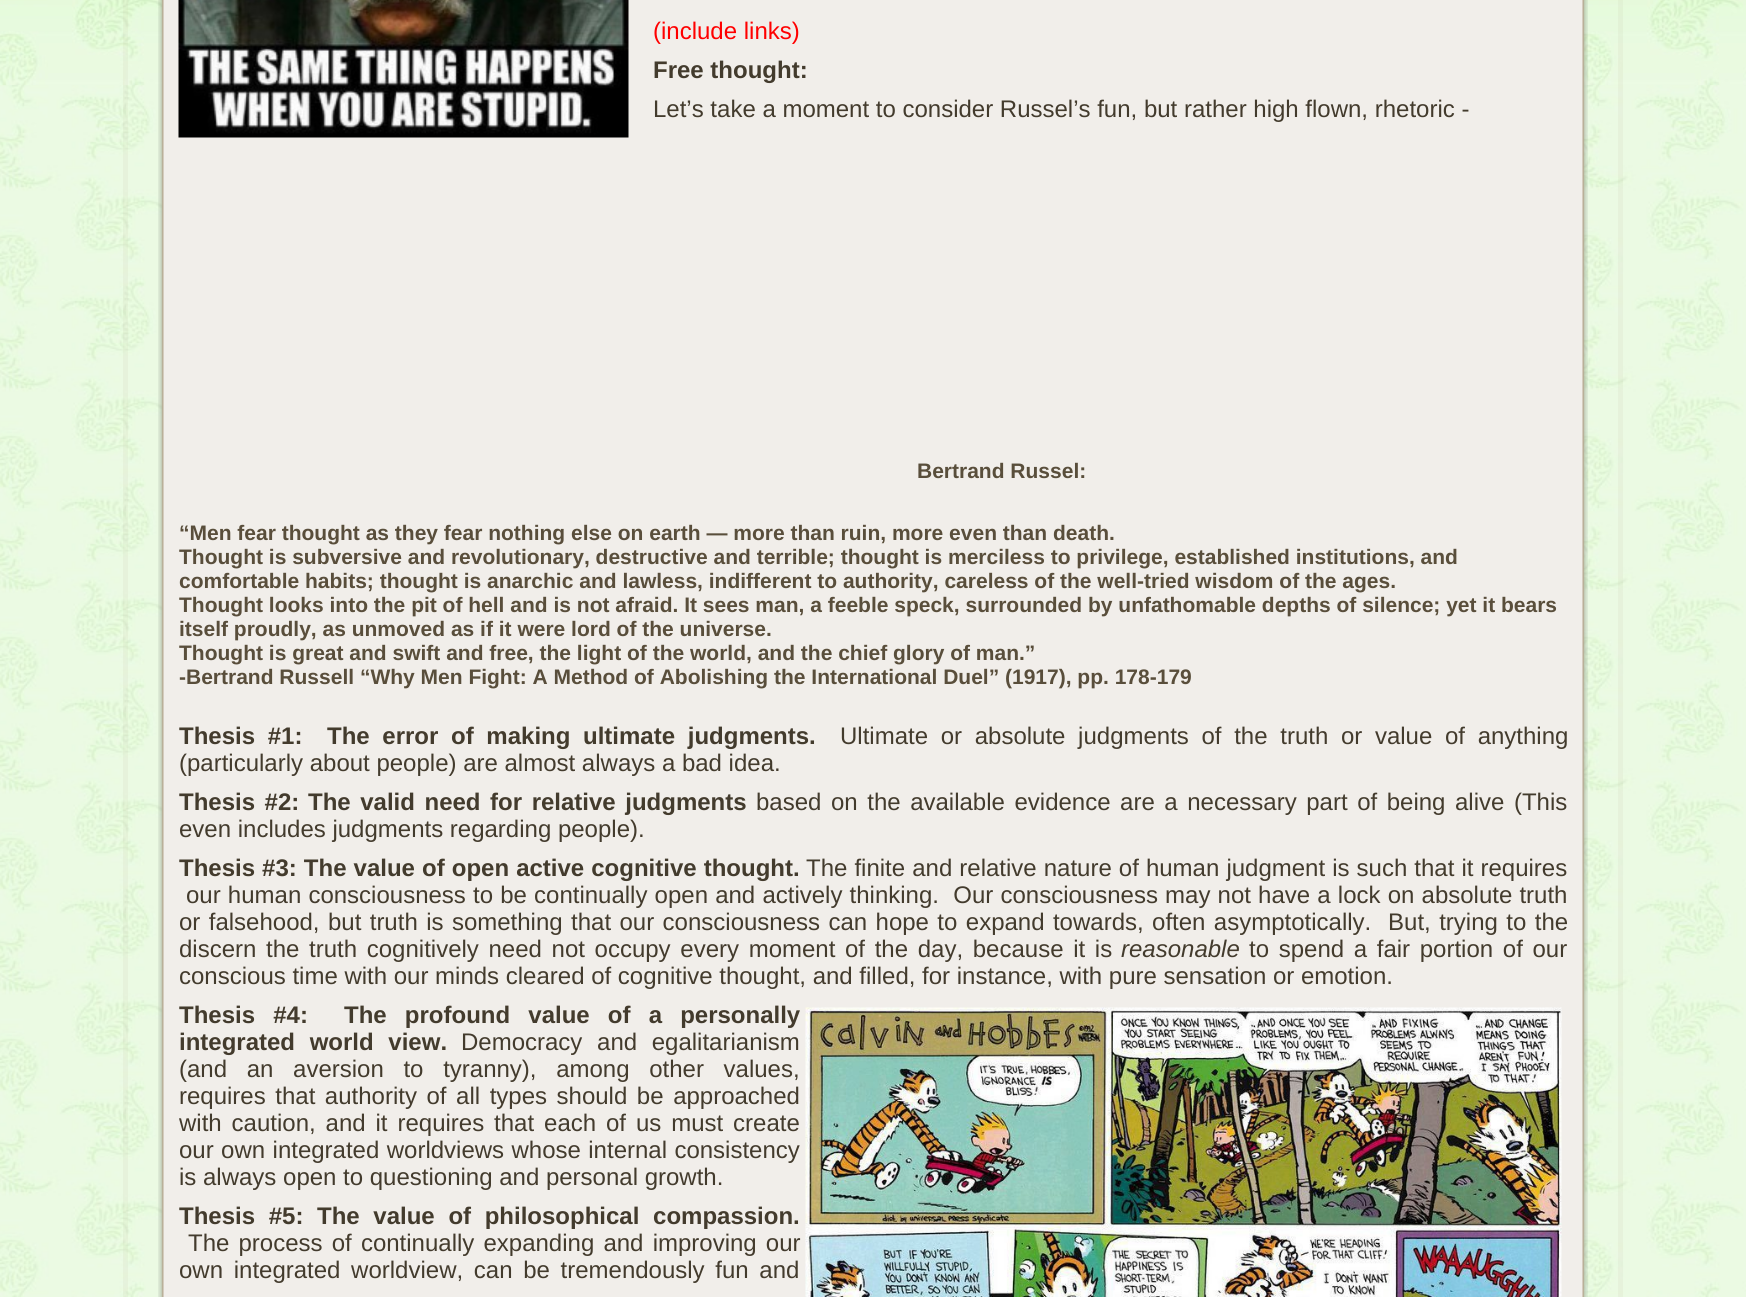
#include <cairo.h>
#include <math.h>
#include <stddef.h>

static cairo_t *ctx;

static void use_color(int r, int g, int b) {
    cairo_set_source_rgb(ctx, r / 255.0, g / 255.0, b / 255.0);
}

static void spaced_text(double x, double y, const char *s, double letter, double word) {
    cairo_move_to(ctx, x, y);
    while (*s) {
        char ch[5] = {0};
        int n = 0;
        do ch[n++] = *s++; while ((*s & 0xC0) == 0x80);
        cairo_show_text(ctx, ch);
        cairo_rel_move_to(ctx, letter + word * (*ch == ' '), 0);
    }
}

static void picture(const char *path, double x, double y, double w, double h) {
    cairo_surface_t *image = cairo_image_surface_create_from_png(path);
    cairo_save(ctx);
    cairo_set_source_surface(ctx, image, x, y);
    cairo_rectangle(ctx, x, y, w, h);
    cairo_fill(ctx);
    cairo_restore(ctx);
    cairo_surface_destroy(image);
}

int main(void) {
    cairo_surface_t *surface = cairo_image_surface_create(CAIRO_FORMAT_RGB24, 1746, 1297);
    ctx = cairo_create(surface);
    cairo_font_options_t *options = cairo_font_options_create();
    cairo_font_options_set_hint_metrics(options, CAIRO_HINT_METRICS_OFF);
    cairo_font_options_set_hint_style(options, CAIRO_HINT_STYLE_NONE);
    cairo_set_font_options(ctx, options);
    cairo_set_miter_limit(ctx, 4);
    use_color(255, 255, 255);
    cairo_paint(ctx);
    picture("img1.png", 0, 85, 1746, 1212);
    picture("img2.png", 0, 0, 1746, 85);
    cairo_set_source_rgba(ctx, 0.722, 0.678, 0.561, 0.1);
    cairo_rectangle(ctx, 123, 0, 5, 1297);
    cairo_fill(ctx);
    picture("img3.png", 158, 0, 34, 1297);
    use_color(241, 238, 234);
    cairo_rectangle(ctx, 192, 0, 1362, 1297);
    cairo_fill(ctx);
    picture("img4.png", 1554, 0, 34, 1297);
    picture("img5.png", 178, 0, 451, 138);
    cairo_select_font_face(ctx, "Liberation Sans", CAIRO_FONT_SLANT_NORMAL, CAIRO_FONT_WEIGHT_NORMAL);
    cairo_set_font_size(ctx, 24);
    use_color(255, 0, 0);
    cairo_move_to(ctx, 653, 39);
    cairo_show_text(ctx, "(include links)");
    cairo_select_font_face(ctx, "Liberation Sans", CAIRO_FONT_SLANT_NORMAL, CAIRO_FONT_WEIGHT_BOLD);
    use_color(67, 59, 45);
    cairo_move_to(ctx, 653, 78);
    cairo_show_text(ctx, "Free thought:");
    cairo_select_font_face(ctx, "Liberation Sans", CAIRO_FONT_SLANT_NORMAL, CAIRO_FONT_WEIGHT_NORMAL);
    cairo_move_to(ctx, 653, 117);
    cairo_show_text(ctx, "Let’s take a moment to consider Russel’s fun, but rather high flown, rhetoric -");
    cairo_select_font_face(ctx, "Liberation Sans", CAIRO_FONT_SLANT_NORMAL, CAIRO_FONT_WEIGHT_BOLD);
    cairo_set_font_size(ctx, 21);
    use_color(89, 78, 59);
    cairo_move_to(ctx, 917, 478);
    cairo_show_text(ctx, "Bertrand Russel:");
    cairo_move_to(ctx, 179, 540);
    cairo_show_text(ctx, "“Men fear thought as they fear nothing else on earth — more than ruin, more even than death.");
    cairo_move_to(ctx, 179, 564);
    cairo_show_text(ctx, "Thought is subversive and revolutionary, destructive and terrible; thought is merciless to privilege, established institutions, and");
    cairo_move_to(ctx, 179, 588);
    cairo_show_text(ctx, "comfortable habits; thought is anarchic and lawless, indifferent to authority, careless of the well-tried wisdom of the ages.");
    cairo_move_to(ctx, 179, 612);
    cairo_show_text(ctx, "Thought looks into the pit of hell and is not afraid. It sees man, a feeble speck, surrounded by unfathomable depths of silence; yet it bears");
    cairo_move_to(ctx, 179, 636);
    cairo_show_text(ctx, "itself proudly, as unmoved as if it were lord of the universe.");
    cairo_move_to(ctx, 179, 660);
    cairo_show_text(ctx, "Thought is great and swift and free, the light of the world, and the chief glory of man.”");
    cairo_move_to(ctx, 179, 684);
    cairo_show_text(ctx, "-Bertrand Russell “Why Men Fight: A Method of Abolishing the International Duel” (1917), pp. 178-179");
    cairo_set_font_size(ctx, 24);
    use_color(67, 59, 45);
    spaced_text(179, 744, "Thesis #1:", 0, 6);
    spaced_text(327, 744, "The error of making ultimate judgments.", 0, 6);
    cairo_select_font_face(ctx, "Liberation Sans", CAIRO_FONT_SLANT_NORMAL, CAIRO_FONT_WEIGHT_NORMAL);
    spaced_text(840, 744, "Ultimate or absolute judgments of the truth or value of anything", 0, 6);
    cairo_move_to(ctx, 179, 771);
    cairo_show_text(ctx, "(particularly about people) are almost always a bad idea.");
    cairo_select_font_face(ctx, "Liberation Sans", CAIRO_FONT_SLANT_NORMAL, CAIRO_FONT_WEIGHT_BOLD);
    spaced_text(179, 810, "Thesis #2:", 0, 2.9);
    spaced_text(308, 810, "The valid need for relative judgments", 0, 2.9);
    cairo_select_font_face(ctx, "Liberation Sans", CAIRO_FONT_SLANT_NORMAL, CAIRO_FONT_WEIGHT_NORMAL);
    spaced_text(756, 810, "based on the available evidence are a necessary part of being alive (This", 0, 2.9);
    cairo_move_to(ctx, 179, 837);
    cairo_show_text(ctx, "even includes judgments regarding people).");
    cairo_select_font_face(ctx, "Liberation Sans", CAIRO_FONT_SLANT_NORMAL, CAIRO_FONT_WEIGHT_BOLD);
    spaced_text(179, 876, "Thesis #3: The value of open active cognitive thought.", 0, 0.4);
    cairo_select_font_face(ctx, "Liberation Sans", CAIRO_FONT_SLANT_NORMAL, CAIRO_FONT_WEIGHT_NORMAL);
    spaced_text(806, 876, "The finite and relative nature of human judgment is such that it requires", 0, 0.4);
    spaced_text(186, 903, "our human consciousness to be continually open and actively thinking.  Our consciousness may not have a lock on absolute truth", 0, 0.5);
    spaced_text(179, 930, "or falsehood, but truth is something that our consciousness can hope to expand towards, often asymptotically.  But, trying to the", 0, 1.75);
    spaced_text(179, 957, "discern the truth cognitively need not occupy every moment of the day, because it is", 0, 3);
    cairo_select_font_face(ctx, "Liberation Sans", CAIRO_FONT_SLANT_ITALIC, CAIRO_FONT_WEIGHT_NORMAL);
    cairo_move_to(ctx, 1121, 957);
    cairo_show_text(ctx, "reasonable");
    cairo_select_font_face(ctx, "Liberation Sans", CAIRO_FONT_SLANT_NORMAL, CAIRO_FONT_WEIGHT_NORMAL);
    spaced_text(1249, 957, "to spend a fair portion of our", 0, 3);
    cairo_move_to(ctx, 179, 984);
    cairo_show_text(ctx, "conscious time with our minds cleared of cognitive thought, and filled, for instance, with pure sensation or emotion.");
    cairo_select_font_face(ctx, "Liberation Sans", CAIRO_FONT_SLANT_NORMAL, CAIRO_FONT_WEIGHT_BOLD);
    spaced_text(179, 1023, "Thesis #4:", 0, 11.5);
    spaced_text(344, 1023, "The profound value of a personally", 0, 11.5);
    spaced_text(179, 1050, "integrated world view.", 0, 8);
    cairo_select_font_face(ctx, "Liberation Sans", CAIRO_FONT_SLANT_NORMAL, CAIRO_FONT_WEIGHT_NORMAL);
    spaced_text(461, 1050, "Democracy and egalitarianism", 0, 8);
    spaced_text(179, 1077, "(and an aversion to tyranny), among other values,", 0, 13);
    spaced_text(179, 1104, "requires that authority of all types should be approached", 0, 2.9);
    spaced_text(179, 1131, "with caution, and it requires that each of us must create", 0, 3.25);
    spaced_text(179, 1158, "our own integrated worldviews whose internal consistency", 0, 0.75);
    cairo_move_to(ctx, 179, 1185);
    cairo_show_text(ctx, "is always open to questioning and personal growth.");
    picture("img6.png", 805, 1007, 757, 290);
    cairo_select_font_face(ctx, "Liberation Sans", CAIRO_FONT_SLANT_NORMAL, CAIRO_FONT_WEIGHT_BOLD);
    spaced_text(179, 1224, "Thesis #5:", 0, 7);
    spaced_text(317, 1224, "The value of philosophical compassion.", 0, 7);
    cairo_select_font_face(ctx, "Liberation Sans", CAIRO_FONT_SLANT_NORMAL, CAIRO_FONT_WEIGHT_NORMAL);
    spaced_text(188, 1251, "The process of continually expanding and improving our", 0, 2.5);
    spaced_text(179, 1278, "own integrated worldview, can be tremendously fun and", 0, 4);
    cairo_set_source_rgba(ctx, 0.722, 0.678, 0.561, 0.1);
    cairo_rectangle(ctx, 1618, 0, 5, 1297);
    cairo_fill(ctx);
    cairo_surface_write_to_png(surface, "result.png");
    cairo_font_options_destroy(options);
    cairo_destroy(ctx);
    cairo_surface_destroy(surface);
    return 0;
}
